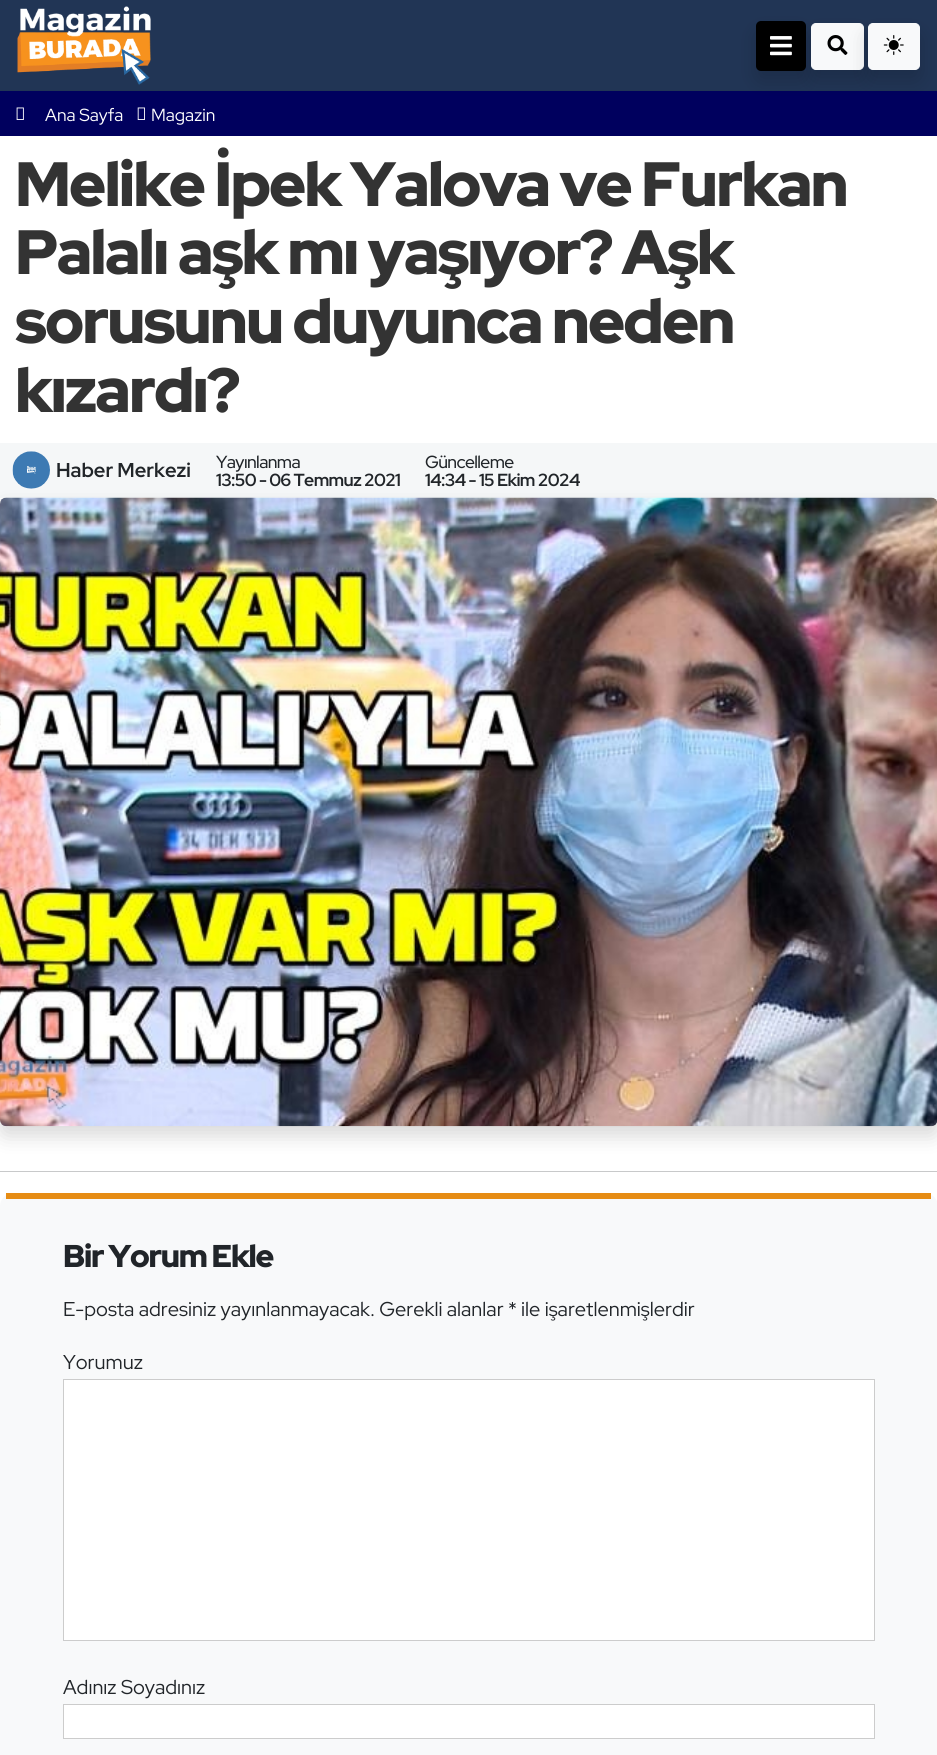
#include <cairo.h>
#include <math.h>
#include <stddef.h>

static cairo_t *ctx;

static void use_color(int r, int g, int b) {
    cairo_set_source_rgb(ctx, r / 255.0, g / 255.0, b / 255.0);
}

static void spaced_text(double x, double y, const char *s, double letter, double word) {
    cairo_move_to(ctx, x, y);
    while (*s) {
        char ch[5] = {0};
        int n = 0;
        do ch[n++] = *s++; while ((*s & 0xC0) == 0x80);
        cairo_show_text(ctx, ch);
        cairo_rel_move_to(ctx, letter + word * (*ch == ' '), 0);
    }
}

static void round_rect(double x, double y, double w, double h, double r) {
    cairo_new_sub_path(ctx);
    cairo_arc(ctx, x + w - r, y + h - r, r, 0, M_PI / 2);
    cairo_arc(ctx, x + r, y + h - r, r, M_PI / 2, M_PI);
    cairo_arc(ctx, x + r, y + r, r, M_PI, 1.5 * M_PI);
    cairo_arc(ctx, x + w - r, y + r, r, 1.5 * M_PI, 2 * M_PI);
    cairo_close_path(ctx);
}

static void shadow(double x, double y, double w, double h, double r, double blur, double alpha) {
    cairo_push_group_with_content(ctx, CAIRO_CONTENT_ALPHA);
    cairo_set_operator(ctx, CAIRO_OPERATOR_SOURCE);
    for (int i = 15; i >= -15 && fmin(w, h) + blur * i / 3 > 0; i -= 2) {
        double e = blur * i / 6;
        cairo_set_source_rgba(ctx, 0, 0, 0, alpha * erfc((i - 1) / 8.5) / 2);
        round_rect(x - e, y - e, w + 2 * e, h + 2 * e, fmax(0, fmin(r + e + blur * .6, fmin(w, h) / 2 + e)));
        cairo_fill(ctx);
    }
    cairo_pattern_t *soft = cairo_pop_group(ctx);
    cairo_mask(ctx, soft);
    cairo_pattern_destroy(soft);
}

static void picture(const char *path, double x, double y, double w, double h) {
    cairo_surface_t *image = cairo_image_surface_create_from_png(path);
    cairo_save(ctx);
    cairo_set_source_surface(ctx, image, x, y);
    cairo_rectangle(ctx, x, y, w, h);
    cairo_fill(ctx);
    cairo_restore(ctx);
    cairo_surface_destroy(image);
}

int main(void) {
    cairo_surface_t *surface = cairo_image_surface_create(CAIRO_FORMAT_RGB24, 937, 1755);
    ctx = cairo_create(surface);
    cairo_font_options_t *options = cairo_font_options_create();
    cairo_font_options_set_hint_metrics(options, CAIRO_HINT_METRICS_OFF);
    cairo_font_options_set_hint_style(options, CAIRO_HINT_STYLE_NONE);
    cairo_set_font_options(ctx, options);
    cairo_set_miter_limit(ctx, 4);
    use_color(255, 255, 255);
    cairo_paint(ctx);
    use_color(33, 53, 85);
    cairo_rectangle(ctx, 0, 0, 937, 91);
    cairo_fill(ctx);
    picture("img1.png", 17, 6, 134, 79);
    use_color(0, 0, 94);
    cairo_rectangle(ctx, 0, 91, 937, 45);
    cairo_fill(ctx);
    use_color(0, 0, 0);
    shadow(756, 31, 50, 50, 5, 10, 0.15);
    use_color(0, 0, 0);
    round_rect(756, 21, 50, 50, 5);
    cairo_fill(ctx);
    picture("img2.png", 770, 36, 22, 20);
    use_color(0, 0, 0);
    shadow(811, 33, 53, 47, 5, 10, 0.15);
    use_color(248, 249, 250);
    round_rect(811.5, 23.5, 52, 46, 4.5);
    cairo_fill_preserve(ctx);
    cairo_set_line_width(ctx, 1);
    cairo_stroke(ctx);
    picture("img3.png", 827, 35, 21, 20);
    use_color(0, 0, 0);
    shadow(868, 33, 52, 47, 5, 10, 0.15);
    use_color(248, 249, 250);
    round_rect(868.5, 23.5, 51, 46, 4.5);
    cairo_fill_preserve(ctx);
    cairo_stroke(ctx);
    picture("img4.png", 883, 35, 21, 20);
    picture("img5.png", 16, 107, 8, 13);
    cairo_select_font_face(ctx, "Red Hat Display", CAIRO_FONT_SLANT_NORMAL, CAIRO_FONT_WEIGHT_NORMAL);
    cairo_set_font_size(ctx, 17.5);
    use_color(255, 255, 255);
    cairo_move_to(ctx, 45, 121);
    cairo_show_text(ctx, "Ana Sayfa");
    picture("img6.png", 137, 107, 8, 13);
    cairo_move_to(ctx, 151, 121);
    cairo_show_text(ctx, "Magazin");
    cairo_select_font_face(ctx, "Red Hat Display Black", CAIRO_FONT_SLANT_NORMAL, CAIRO_FONT_WEIGHT_NORMAL);
    cairo_set_font_size(ctx, 62.5);
    use_color(51, 51, 51);
    spaced_text(15, 206, "Melike İpek Yalova ve Furkan", -1.9, 0);
    spaced_text(15, 274, "Palalı aşk mı yaşıyor? Aşk", -1.9, 0);
    spaced_text(15, 343, "sorusunu duyunca neden", -1.9, 0);
    spaced_text(15, 412, "kızardı?", -1.9, 0);
    use_color(245, 247, 248);
    cairo_rectangle(ctx, 0, 443, 937, 55);
    cairo_fill(ctx);
    picture("img7.png", 12, 451, 38, 38);
    cairo_select_font_face(ctx, "Red Hat Display", CAIRO_FONT_SLANT_NORMAL, CAIRO_FONT_WEIGHT_BOLD);
    cairo_set_font_size(ctx, 20);
    use_color(33, 37, 41);
    cairo_move_to(ctx, 56, 477);
    cairo_show_text(ctx, "Haber Merkezi");
    cairo_select_font_face(ctx, "Red Hat Display Medium", CAIRO_FONT_SLANT_NORMAL, CAIRO_FONT_WEIGHT_NORMAL);
    cairo_set_font_size(ctx, 17.5);
    spaced_text(216, 468, "Yayınlanma", -0.6, 0);
    cairo_select_font_face(ctx, "Red Hat Display", CAIRO_FONT_SLANT_NORMAL, CAIRO_FONT_WEIGHT_BOLD);
    spaced_text(216, 486, "13:50 - 06 Temmuz 2021", -0.6, 0);
    cairo_select_font_face(ctx, "Red Hat Display Medium", CAIRO_FONT_SLANT_NORMAL, CAIRO_FONT_WEIGHT_NORMAL);
    spaced_text(425, 468, "Güncelleme", -0.6, 0);
    cairo_select_font_face(ctx, "Red Hat Display", CAIRO_FONT_SLANT_NORMAL, CAIRO_FONT_WEIGHT_BOLD);
    spaced_text(425, 486, "14:34 - 15 Ekim 2024", -0.6, 0);
    use_color(0, 0, 0);
    shadow(0, 508, 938, 628, 6, 10, 0.15);
    picture("img8.png", 0, 497, 937, 630);
    use_color(200, 201, 202);
    cairo_rectangle(ctx, 0, 1171, 937, 1);
    cairo_fill(ctx);
    use_color(248, 249, 250);
    cairo_new_path(ctx);
    cairo_move_to(ctx, 13, 1193);
    cairo_line_to(ctx, 925, 1193);
    cairo_curve_to(ctx, 932, 1193, 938, 1199, 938, 1206);
    cairo_line_to(ctx, 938, 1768);
    cairo_line_to(ctx, 0, 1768);
    cairo_line_to(ctx, 0, 1206);
    cairo_curve_to(ctx, 0, 1199, 6, 1193, 13, 1193);
    cairo_close_path(ctx);
    cairo_fill(ctx);
    use_color(230, 140, 20);
    cairo_rectangle(ctx, 6, 1193, 925, 6);
    cairo_fill(ctx);
    cairo_select_font_face(ctx, "Red Hat Display Black", CAIRO_FONT_SLANT_NORMAL, CAIRO_FONT_WEIGHT_NORMAL);
    cairo_set_font_size(ctx, 31.5);
    use_color(33, 37, 41);
    spaced_text(63, 1267, "Bir Yorum Ekle", -1.25, 0);
    cairo_select_font_face(ctx, "Red Hat Display", CAIRO_FONT_SLANT_NORMAL, CAIRO_FONT_WEIGHT_NORMAL);
    cairo_set_font_size(ctx, 20);
    cairo_move_to(ctx, 63, 1316);
    cairo_show_text(ctx, "E-posta adresiniz yayınlanmayacak. Gerekli alanlar * ile işaretlenmişlerdir");
    cairo_move_to(ctx, 63, 1369);
    cairo_show_text(ctx, "Yorumuz");
    use_color(255, 255, 255);
    cairo_rectangle(ctx, 63.5, 1379.5, 811, 261);
    cairo_fill_preserve(ctx);
    use_color(204, 204, 204);
    cairo_stroke(ctx);
    use_color(33, 37, 41);
    cairo_move_to(ctx, 63, 1694);
    cairo_show_text(ctx, "Adınız Soyadınız");
    use_color(255, 255, 255);
    cairo_rectangle(ctx, 63.5, 1704.5, 811, 34);
    cairo_fill_preserve(ctx);
    use_color(204, 204, 204);
    cairo_stroke(ctx);
    cairo_surface_write_to_png(surface, "result.png");
    cairo_font_options_destroy(options);
    cairo_destroy(ctx);
    cairo_surface_destroy(surface);
    return 0;
}
